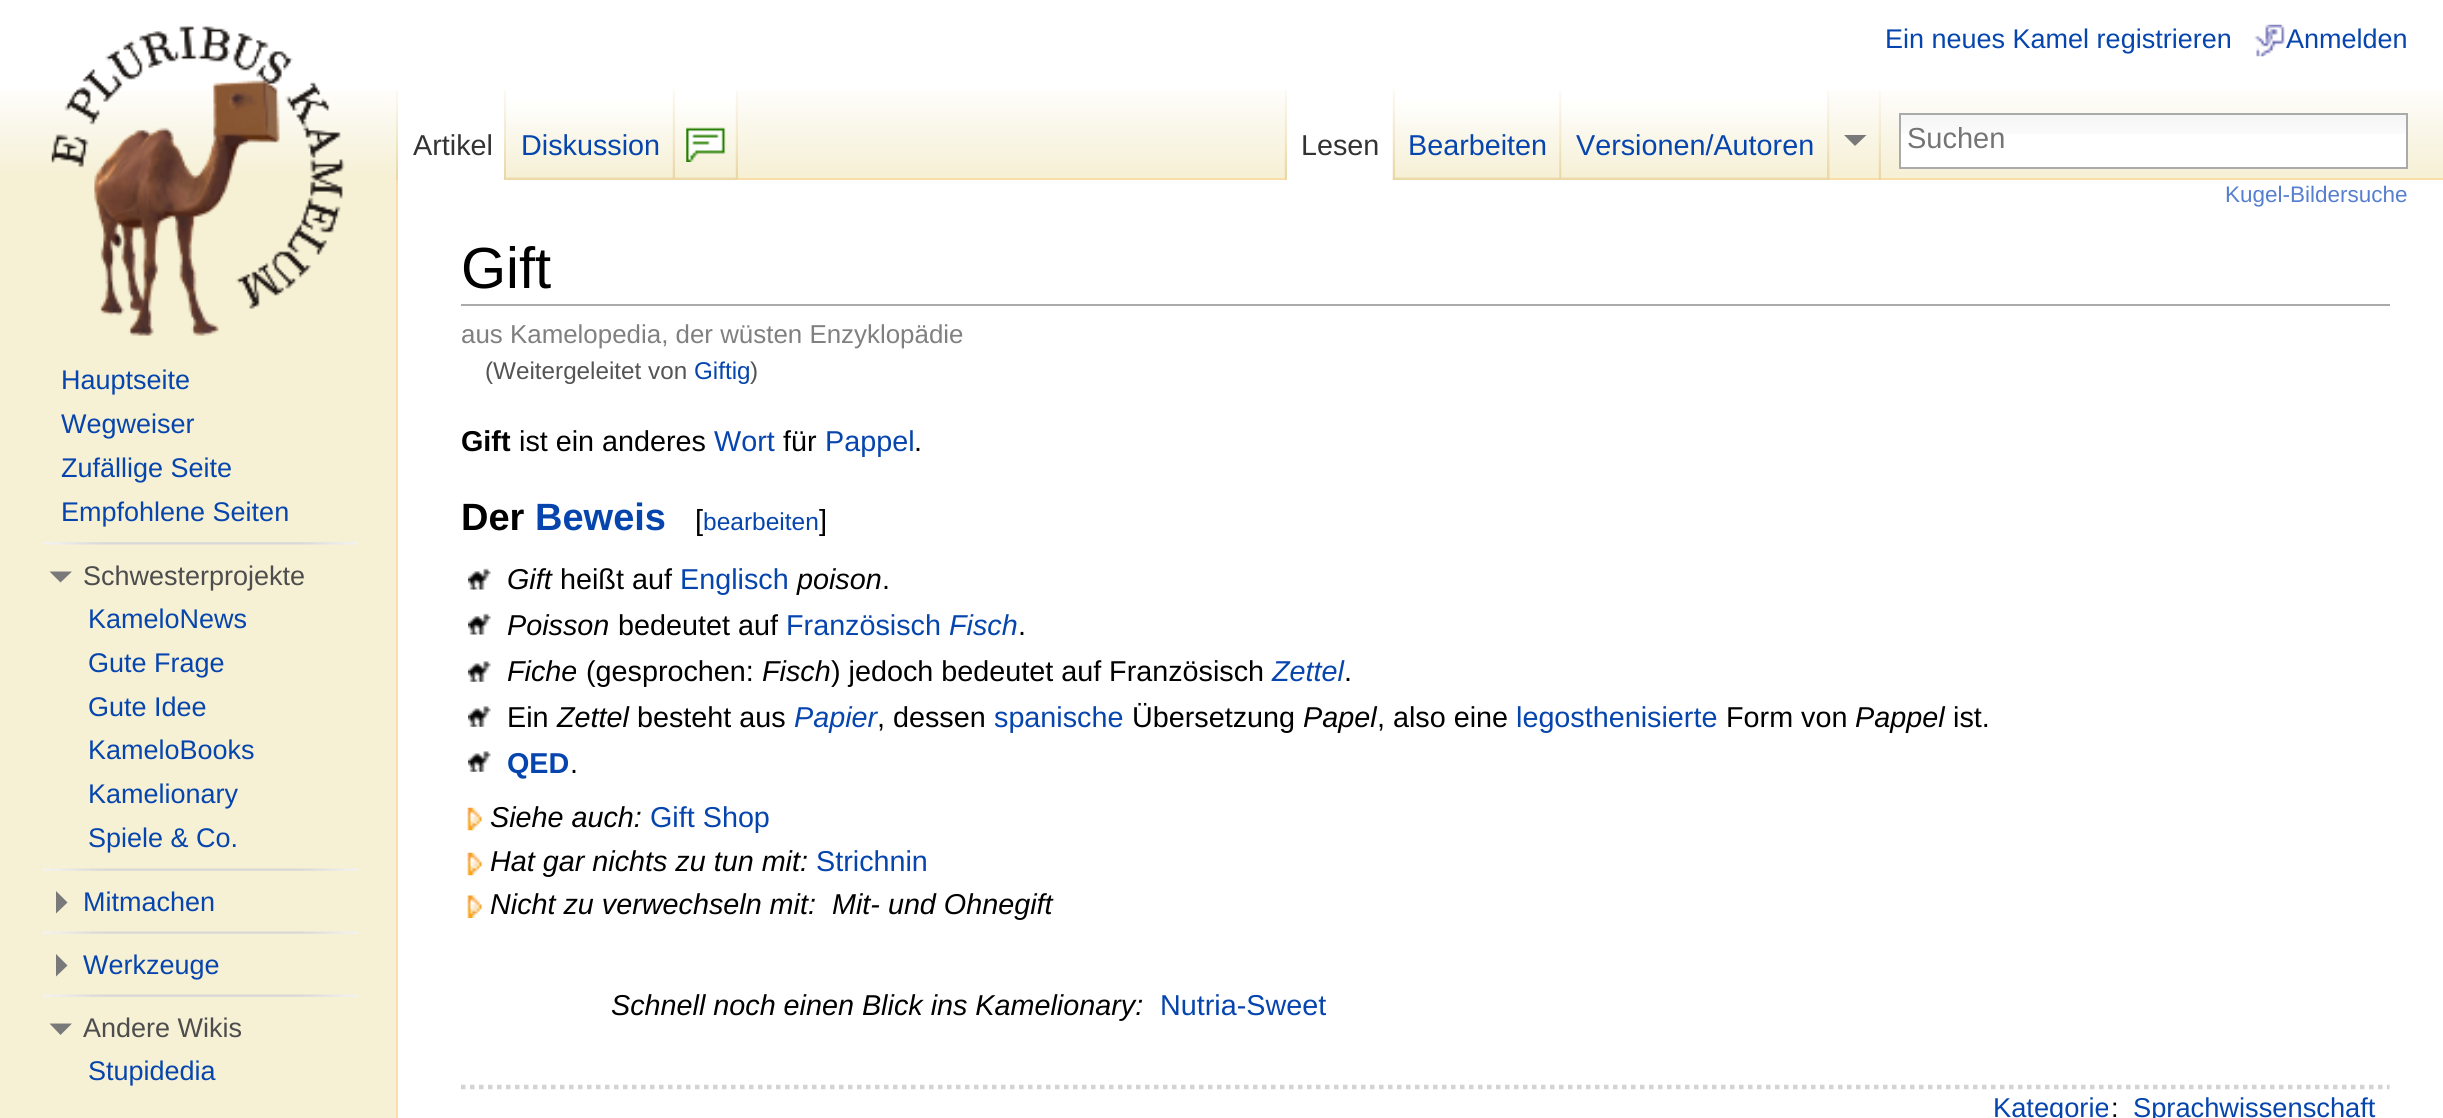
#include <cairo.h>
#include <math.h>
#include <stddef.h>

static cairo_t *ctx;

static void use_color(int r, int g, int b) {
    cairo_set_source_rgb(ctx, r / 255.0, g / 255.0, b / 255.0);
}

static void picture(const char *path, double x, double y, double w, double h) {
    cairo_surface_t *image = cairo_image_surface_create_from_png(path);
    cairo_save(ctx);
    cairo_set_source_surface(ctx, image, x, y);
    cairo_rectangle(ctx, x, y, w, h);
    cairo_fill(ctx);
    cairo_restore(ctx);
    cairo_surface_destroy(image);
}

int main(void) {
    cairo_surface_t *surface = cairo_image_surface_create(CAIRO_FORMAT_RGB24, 2443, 1118);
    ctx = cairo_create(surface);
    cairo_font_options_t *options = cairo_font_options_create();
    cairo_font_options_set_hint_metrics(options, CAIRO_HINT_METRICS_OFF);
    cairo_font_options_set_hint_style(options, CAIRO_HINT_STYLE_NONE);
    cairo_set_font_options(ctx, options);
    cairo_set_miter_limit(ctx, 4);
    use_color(246, 240, 212);
    cairo_paint(ctx);
    use_color(255, 255, 255);
    cairo_rectangle(ctx, 0, 0, 2443, 91);
    cairo_fill(ctx);
    picture("img1.png", 0, 91, 2443, 89);
    cairo_select_font_face(ctx, "Liberation Sans", CAIRO_FONT_SLANT_NORMAL, CAIRO_FONT_WEIGHT_NORMAL);
    cairo_set_font_size(ctx, 27);
    use_color(6, 69, 173);
    cairo_move_to(ctx, 1885, 48);
    cairo_show_text(ctx, "Ein neues Kamel registrieren");
    picture("img2.png", 2254, 24, 31, 33);
    cairo_move_to(ctx, 2286, 48);
    cairo_show_text(ctx, "Anmelden");
    use_color(249, 223, 167);
    cairo_rectangle(ctx, 396, 178, 2, 940);
    cairo_fill(ctx);
    picture("img3.png", 396, 90, 2, 90);
    use_color(255, 255, 255);
    cairo_rectangle(ctx, 398, 91, 109, 89);
    cairo_fill(ctx);
    picture("img4.png", 504, 90, 3, 90);
    cairo_set_font_size(ctx, 28.75);
    use_color(51, 51, 51);
    cairo_move_to(ctx, 413, 155);
    cairo_show_text(ctx, "Artikel");
    picture("img5.png", 506, 90, 169, 90);
    picture("img6.png", 672, 90, 3, 89);
    use_color(6, 69, 173);
    cairo_move_to(ctx, 521, 155);
    cairo_show_text(ctx, "Diskussion");
    picture("img7.png", 675, 90, 63, 90);
    picture("img8.png", 735, 90, 3, 89);
    picture("img9.png", 686, 127, 40, 35);
    use_color(249, 223, 167);
    cairo_rectangle(ctx, 738, 178, 1705, 2);
    cairo_fill(ctx);
    picture("img10.png", 1284, 90, 3, 90);
    picture("img11.png", 1829, 90, 1, 90);
    use_color(255, 255, 255);
    cairo_rectangle(ctx, 1287, 91, 106, 89);
    cairo_fill(ctx);
    picture("img12.png", 1392, 90, 3, 90);
    use_color(51, 51, 51);
    cairo_move_to(ctx, 1301, 155);
    cairo_show_text(ctx, "Lesen");
    picture("img13.png", 1395, 90, 167, 90);
    picture("img14.png", 1559, 90, 3, 90);
    use_color(6, 69, 173);
    cairo_move_to(ctx, 1408, 155);
    cairo_show_text(ctx, "Bearbeiten");
    picture("img15.png", 1561, 90, 269, 90);
    picture("img16.png", 1827, 90, 3, 90);
    cairo_move_to(ctx, 1576, 155);
    cairo_show_text(ctx, "Versionen/Autoren");
    use_color(121, 121, 121);
    cairo_new_path(ctx);
    cairo_move_to(ctx, 1866.5, 135);
    cairo_line_to(ctx, 1855, 146);
    cairo_line_to(ctx, 1844, 135);
    cairo_close_path(ctx);
    cairo_fill(ctx);
    picture("img17.png", 1878, 90, 3, 90);
    use_color(255, 255, 255);
    cairo_rectangle(ctx, 1901, 134, 505, 33);
    cairo_fill(ctx);
    picture("img18.png", 1901, 115, 505, 19);
    cairo_rectangle(ctx, 1900, 114, 507, 54);
    use_color(170, 170, 170);
    cairo_stroke(ctx);
    cairo_set_font_size(ctx, 29);
    use_color(117, 117, 117);
    cairo_move_to(ctx, 1907, 148);
    cairo_show_text(ctx, "Suchen");
    use_color(255, 255, 255);
    cairo_rectangle(ctx, 398, 180, 2045, 938);
    cairo_fill(ctx);
    cairo_set_font_size(ctx, 22.5);
    use_color(87, 127, 207);
    cairo_move_to(ctx, 2225, 202);
    cairo_show_text(ctx, "Kugel-Bildersuche");
    picture("img19.png", 51, 26, 294, 310);
    cairo_set_font_size(ctx, 27);
    use_color(6, 69, 173);
    cairo_move_to(ctx, 61, 389);
    cairo_show_text(ctx, "Hauptseite");
    cairo_move_to(ctx, 61, 433);
    cairo_show_text(ctx, "Wegweiser");
    cairo_move_to(ctx, 61, 477);
    cairo_show_text(ctx, "Zufällige Seite");
    cairo_move_to(ctx, 61, 521);
    cairo_show_text(ctx, "Empfohlene Seiten");
    picture("img20.png", 42, 542, 316, 3);
    use_color(121, 121, 121);
    cairo_new_path(ctx);
    cairo_move_to(ctx, 72, 571.5);
    cairo_line_to(ctx, 60.5, 582.5);
    cairo_line_to(ctx, 49.5, 571.5);
    cairo_close_path(ctx);
    cairo_fill(ctx);
    use_color(77, 77, 77);
    cairo_move_to(ctx, 83, 585);
    cairo_show_text(ctx, "Schwesterprojekte");
    use_color(6, 69, 173);
    cairo_move_to(ctx, 88, 628);
    cairo_show_text(ctx, "KameloNews");
    cairo_move_to(ctx, 88, 672);
    cairo_show_text(ctx, "Gute Frage");
    cairo_move_to(ctx, 88, 716);
    cairo_show_text(ctx, "Gute Idee");
    cairo_move_to(ctx, 88, 759);
    cairo_show_text(ctx, "KameloBooks");
    cairo_move_to(ctx, 88, 803);
    cairo_show_text(ctx, "Kamelionary");
    cairo_move_to(ctx, 88, 847);
    cairo_show_text(ctx, "Spiele & Co.");
    picture("img21.png", 42, 868, 316, 3);
    use_color(121, 121, 121);
    cairo_new_path(ctx);
    cairo_move_to(ctx, 56, 891);
    cairo_line_to(ctx, 67.5, 902.5);
    cairo_line_to(ctx, 56, 913.5);
    cairo_close_path(ctx);
    cairo_fill(ctx);
    use_color(6, 69, 173);
    cairo_move_to(ctx, 83, 911);
    cairo_show_text(ctx, "Mitmachen");
    picture("img21.png", 42, 931, 316, 3);
    use_color(121, 121, 121);
    cairo_new_path(ctx);
    cairo_move_to(ctx, 56, 954);
    cairo_line_to(ctx, 67.5, 965.5);
    cairo_line_to(ctx, 56, 976.5);
    cairo_close_path(ctx);
    cairo_fill(ctx);
    use_color(6, 69, 173);
    cairo_move_to(ctx, 83, 974);
    cairo_show_text(ctx, "Werkzeuge");
    picture("img21.png", 42, 994, 316, 3);
    use_color(121, 121, 121);
    cairo_new_path(ctx);
    cairo_move_to(ctx, 72, 1023.5);
    cairo_line_to(ctx, 60.5, 1035);
    cairo_line_to(ctx, 49.5, 1023.5);
    cairo_close_path(ctx);
    cairo_fill(ctx);
    use_color(77, 77, 77);
    cairo_move_to(ctx, 83, 1037);
    cairo_show_text(ctx, "Andere Wikis");
    use_color(6, 69, 173);
    cairo_move_to(ctx, 88, 1080);
    cairo_show_text(ctx, "Stupidedia");
    use_color(170, 170, 170);
    cairo_rectangle(ctx, 461, 304, 1929, 2);
    cairo_fill(ctx);
    cairo_set_font_size(ctx, 58);
    use_color(0, 0, 0);
    cairo_move_to(ctx, 461, 288);
    cairo_show_text(ctx, "Gift");
    cairo_set_font_size(ctx, 25.9);
    use_color(128, 128, 128);
    cairo_move_to(ctx, 461, 343);
    cairo_show_text(ctx, "aus Kamelopedia, der wüsten Enzyklopädie");
    cairo_set_font_size(ctx, 24.25);
    use_color(84, 84, 84);
    cairo_move_to(ctx, 485, 379);
    cairo_show_text(ctx, "(Weitergeleitet von");
    use_color(6, 69, 173);
    cairo_move_to(ctx, 694, 379);
    cairo_show_text(ctx, "Giftig");
    use_color(84, 84, 84);
    cairo_move_to(ctx, 750, 379);
    cairo_show_text(ctx, ")");
    cairo_select_font_face(ctx, "Liberation Sans", CAIRO_FONT_SLANT_NORMAL, CAIRO_FONT_WEIGHT_BOLD);
    cairo_set_font_size(ctx, 28.75);
    use_color(0, 0, 0);
    cairo_move_to(ctx, 461, 451);
    cairo_show_text(ctx, "Gift");
    cairo_select_font_face(ctx, "Liberation Sans", CAIRO_FONT_SLANT_NORMAL, CAIRO_FONT_WEIGHT_NORMAL);
    cairo_move_to(ctx, 519, 451);
    cairo_show_text(ctx, "ist ein anderes");
    use_color(6, 69, 173);
    cairo_move_to(ctx, 714, 451);
    cairo_show_text(ctx, "Wort");
    use_color(0, 0, 0);
    cairo_move_to(ctx, 783, 451);
    cairo_show_text(ctx, "für");
    use_color(6, 69, 173);
    cairo_move_to(ctx, 825, 451);
    cairo_show_text(ctx, "Pappel");
    use_color(0, 0, 0);
    cairo_move_to(ctx, 914, 451);
    cairo_show_text(ctx, ".");
    cairo_select_font_face(ctx, "Liberation Sans", CAIRO_FONT_SLANT_NORMAL, CAIRO_FONT_WEIGHT_BOLD);
    cairo_set_font_size(ctx, 38);
    cairo_move_to(ctx, 461, 530);
    cairo_show_text(ctx, "Der");
    use_color(6, 69, 173);
    cairo_move_to(ctx, 535, 530);
    cairo_show_text(ctx, "Beweis");
    cairo_select_font_face(ctx, "Liberation Sans", CAIRO_FONT_SLANT_NORMAL, CAIRO_FONT_WEIGHT_NORMAL);
    cairo_set_font_size(ctx, 29);
    use_color(0, 0, 0);
    cairo_move_to(ctx, 695, 530);
    cairo_show_text(ctx, "[");
    cairo_set_font_size(ctx, 24.5);
    use_color(6, 69, 173);
    cairo_move_to(ctx, 703, 530);
    cairo_show_text(ctx, "bearbeiten");
    cairo_set_font_size(ctx, 29);
    use_color(0, 0, 0);
    cairo_move_to(ctx, 819, 530);
    cairo_show_text(ctx, "]");
    picture("img22.png", 468, 568, 23, 22);
    cairo_select_font_face(ctx, "Liberation Sans", CAIRO_FONT_SLANT_ITALIC, CAIRO_FONT_WEIGHT_NORMAL);
    cairo_set_font_size(ctx, 28.75);
    cairo_move_to(ctx, 507, 589);
    cairo_show_text(ctx, "Gift");
    cairo_select_font_face(ctx, "Liberation Sans", CAIRO_FONT_SLANT_NORMAL, CAIRO_FONT_WEIGHT_NORMAL);
    cairo_move_to(ctx, 560, 589);
    cairo_show_text(ctx, "heißt auf");
    use_color(6, 69, 173);
    cairo_move_to(ctx, 680, 589);
    cairo_show_text(ctx, "Englisch");
    cairo_select_font_face(ctx, "Liberation Sans", CAIRO_FONT_SLANT_ITALIC, CAIRO_FONT_WEIGHT_NORMAL);
    use_color(0, 0, 0);
    cairo_move_to(ctx, 797, 589);
    cairo_show_text(ctx, "poison");
    cairo_select_font_face(ctx, "Liberation Sans", CAIRO_FONT_SLANT_NORMAL, CAIRO_FONT_WEIGHT_NORMAL);
    cairo_move_to(ctx, 882, 589);
    cairo_show_text(ctx, ".");
    picture("img23.png", 468, 613, 23, 22);
    cairo_select_font_face(ctx, "Liberation Sans", CAIRO_FONT_SLANT_ITALIC, CAIRO_FONT_WEIGHT_NORMAL);
    cairo_move_to(ctx, 507, 635);
    cairo_show_text(ctx, "Poisson");
    cairo_select_font_face(ctx, "Liberation Sans", CAIRO_FONT_SLANT_NORMAL, CAIRO_FONT_WEIGHT_NORMAL);
    cairo_move_to(ctx, 618, 635);
    cairo_show_text(ctx, "bedeutet auf");
    use_color(6, 69, 173);
    cairo_move_to(ctx, 786, 635);
    cairo_show_text(ctx, "Französisch");
    cairo_select_font_face(ctx, "Liberation Sans", CAIRO_FONT_SLANT_ITALIC, CAIRO_FONT_WEIGHT_NORMAL);
    cairo_move_to(ctx, 949, 635);
    cairo_show_text(ctx, "Fisch");
    cairo_select_font_face(ctx, "Liberation Sans", CAIRO_FONT_SLANT_NORMAL, CAIRO_FONT_WEIGHT_NORMAL);
    use_color(0, 0, 0);
    cairo_move_to(ctx, 1018, 635);
    cairo_show_text(ctx, ".");
    picture("img24.png", 468, 661, 23, 21);
    cairo_select_font_face(ctx, "Liberation Sans", CAIRO_FONT_SLANT_ITALIC, CAIRO_FONT_WEIGHT_NORMAL);
    cairo_move_to(ctx, 507, 681);
    cairo_show_text(ctx, "Fiche");
    cairo_select_font_face(ctx, "Liberation Sans", CAIRO_FONT_SLANT_NORMAL, CAIRO_FONT_WEIGHT_NORMAL);
    cairo_move_to(ctx, 586, 681);
    cairo_show_text(ctx, "(gesprochen:");
    cairo_select_font_face(ctx, "Liberation Sans", CAIRO_FONT_SLANT_ITALIC, CAIRO_FONT_WEIGHT_NORMAL);
    cairo_move_to(ctx, 762, 681);
    cairo_show_text(ctx, "Fisch");
    cairo_select_font_face(ctx, "Liberation Sans", CAIRO_FONT_SLANT_NORMAL, CAIRO_FONT_WEIGHT_NORMAL);
    cairo_move_to(ctx, 831, 681);
    cairo_show_text(ctx, ") jedoch bedeutet auf Französisch");
    cairo_select_font_face(ctx, "Liberation Sans", CAIRO_FONT_SLANT_ITALIC, CAIRO_FONT_WEIGHT_NORMAL);
    use_color(6, 69, 173);
    cairo_move_to(ctx, 1272, 681);
    cairo_show_text(ctx, "Zettel");
    cairo_select_font_face(ctx, "Liberation Sans", CAIRO_FONT_SLANT_NORMAL, CAIRO_FONT_WEIGHT_NORMAL);
    use_color(0, 0, 0);
    cairo_move_to(ctx, 1344, 681);
    cairo_show_text(ctx, ".");
    picture("img24.png", 468, 706, 23, 21);
    cairo_move_to(ctx, 507, 727);
    cairo_show_text(ctx, "Ein");
    cairo_select_font_face(ctx, "Liberation Sans", CAIRO_FONT_SLANT_ITALIC, CAIRO_FONT_WEIGHT_NORMAL);
    cairo_move_to(ctx, 557, 727);
    cairo_show_text(ctx, "Zettel");
    cairo_select_font_face(ctx, "Liberation Sans", CAIRO_FONT_SLANT_NORMAL, CAIRO_FONT_WEIGHT_NORMAL);
    cairo_move_to(ctx, 637, 727);
    cairo_show_text(ctx, "besteht aus");
    cairo_select_font_face(ctx, "Liberation Sans", CAIRO_FONT_SLANT_ITALIC, CAIRO_FONT_WEIGHT_NORMAL);
    use_color(6, 69, 173);
    cairo_move_to(ctx, 794, 727);
    cairo_show_text(ctx, "Papier");
    cairo_select_font_face(ctx, "Liberation Sans", CAIRO_FONT_SLANT_NORMAL, CAIRO_FONT_WEIGHT_NORMAL);
    use_color(0, 0, 0);
    cairo_move_to(ctx, 877, 727);
    cairo_show_text(ctx, ", dessen");
    use_color(6, 69, 173);
    cairo_move_to(ctx, 994, 727);
    cairo_show_text(ctx, "spanische");
    use_color(0, 0, 0);
    cairo_move_to(ctx, 1132, 727);
    cairo_show_text(ctx, "Übersetzung");
    cairo_select_font_face(ctx, "Liberation Sans", CAIRO_FONT_SLANT_ITALIC, CAIRO_FONT_WEIGHT_NORMAL);
    cairo_move_to(ctx, 1303, 727);
    cairo_show_text(ctx, "Papel");
    cairo_select_font_face(ctx, "Liberation Sans", CAIRO_FONT_SLANT_NORMAL, CAIRO_FONT_WEIGHT_NORMAL);
    cairo_move_to(ctx, 1377, 727);
    cairo_show_text(ctx, ", also eine");
    use_color(6, 69, 173);
    cairo_move_to(ctx, 1516, 727);
    cairo_show_text(ctx, "legosthenisierte");
    use_color(0, 0, 0);
    cairo_move_to(ctx, 1726, 727);
    cairo_show_text(ctx, "Form von");
    cairo_select_font_face(ctx, "Liberation Sans", CAIRO_FONT_SLANT_ITALIC, CAIRO_FONT_WEIGHT_NORMAL);
    cairo_move_to(ctx, 1855, 727);
    cairo_show_text(ctx, "Pappel");
    cairo_select_font_face(ctx, "Liberation Sans", CAIRO_FONT_SLANT_NORMAL, CAIRO_FONT_WEIGHT_NORMAL);
    cairo_move_to(ctx, 1953, 727);
    cairo_show_text(ctx, "ist.");
    picture("img24.png", 468, 751, 23, 21);
    cairo_select_font_face(ctx, "Liberation Sans", CAIRO_FONT_SLANT_NORMAL, CAIRO_FONT_WEIGHT_BOLD);
    use_color(6, 69, 173);
    cairo_move_to(ctx, 507, 773);
    cairo_show_text(ctx, "QED");
    cairo_select_font_face(ctx, "Liberation Sans", CAIRO_FONT_SLANT_NORMAL, CAIRO_FONT_WEIGHT_NORMAL);
    use_color(0, 0, 0);
    cairo_move_to(ctx, 570, 773);
    cairo_show_text(ctx, ".");
    picture("img25.png", 467, 807, 15, 24);
    cairo_select_font_face(ctx, "Liberation Sans", CAIRO_FONT_SLANT_ITALIC, CAIRO_FONT_WEIGHT_NORMAL);
    cairo_move_to(ctx, 490, 827);
    cairo_show_text(ctx, "Siehe auch:");
    cairo_select_font_face(ctx, "Liberation Sans", CAIRO_FONT_SLANT_NORMAL, CAIRO_FONT_WEIGHT_NORMAL);
    use_color(6, 69, 173);
    cairo_move_to(ctx, 650, 827);
    cairo_show_text(ctx, "Gift Shop");
    picture("img25.png", 467, 852, 15, 24);
    cairo_select_font_face(ctx, "Liberation Sans", CAIRO_FONT_SLANT_ITALIC, CAIRO_FONT_WEIGHT_NORMAL);
    use_color(0, 0, 0);
    cairo_move_to(ctx, 490, 871);
    cairo_show_text(ctx, "Hat gar nichts zu tun mit:");
    cairo_select_font_face(ctx, "Liberation Sans", CAIRO_FONT_SLANT_NORMAL, CAIRO_FONT_WEIGHT_NORMAL);
    use_color(6, 69, 173);
    cairo_move_to(ctx, 816, 871);
    cairo_show_text(ctx, "Strichnin");
    picture("img26.png", 467, 895, 15, 23);
    cairo_select_font_face(ctx, "Liberation Sans", CAIRO_FONT_SLANT_ITALIC, CAIRO_FONT_WEIGHT_NORMAL);
    use_color(0, 0, 0);
    cairo_move_to(ctx, 490, 914);
    cairo_show_text(ctx, "Nicht zu verwechseln mit:");
    cairo_move_to(ctx, 832, 914);
    cairo_show_text(ctx, "Mit- und Ohnegift");
    cairo_move_to(ctx, 611, 1015);
    cairo_show_text(ctx, "Schnell noch einen Blick ins Kamelionary:");
    cairo_select_font_face(ctx, "Liberation Sans", CAIRO_FONT_SLANT_NORMAL, CAIRO_FONT_WEIGHT_NORMAL);
    use_color(6, 69, 173);
    cairo_move_to(ctx, 1160, 1015);
    cairo_show_text(ctx, "Nutria-Sweet");
    cairo_new_path(ctx);
    cairo_move_to(ctx, 461, 1087);
    cairo_line_to(ctx, 2389.5, 1087);
    use_color(211, 211, 211);
    cairo_set_line_width(ctx, 4.5);
    cairo_set_dash(ctx, (double[]){4.5, 4.5}, 2, 0);
    cairo_stroke(ctx);
    cairo_set_font_size(ctx, 27.25);
    use_color(6, 69, 173);
    cairo_move_to(ctx, 1993, 1117);
    cairo_show_text(ctx, "Kategorie");
    use_color(0, 0, 0);
    cairo_move_to(ctx, 2111, 1117);
    cairo_show_text(ctx, ":");
    use_color(6, 69, 173);
    cairo_move_to(ctx, 2133, 1117);
    cairo_show_text(ctx, "Sprachwissenschaft");
    cairo_surface_write_to_png(surface, "result.png");
    cairo_font_options_destroy(options);
    cairo_destroy(ctx);
    cairo_surface_destroy(surface);
    return 0;
}
